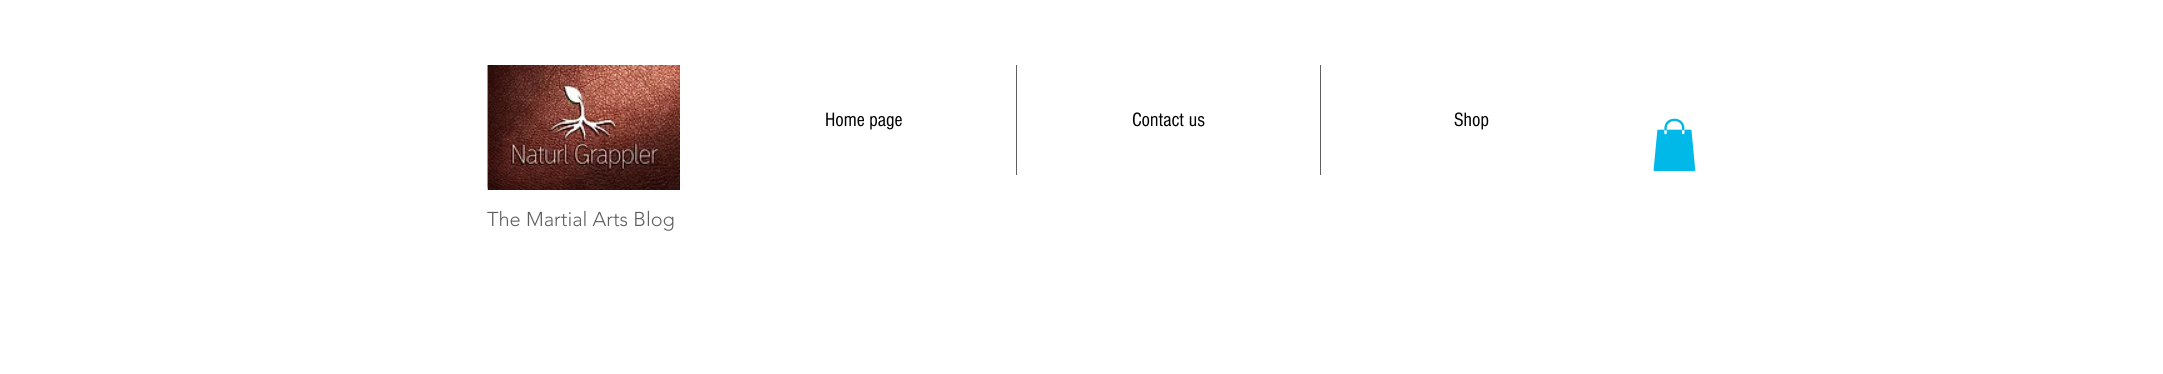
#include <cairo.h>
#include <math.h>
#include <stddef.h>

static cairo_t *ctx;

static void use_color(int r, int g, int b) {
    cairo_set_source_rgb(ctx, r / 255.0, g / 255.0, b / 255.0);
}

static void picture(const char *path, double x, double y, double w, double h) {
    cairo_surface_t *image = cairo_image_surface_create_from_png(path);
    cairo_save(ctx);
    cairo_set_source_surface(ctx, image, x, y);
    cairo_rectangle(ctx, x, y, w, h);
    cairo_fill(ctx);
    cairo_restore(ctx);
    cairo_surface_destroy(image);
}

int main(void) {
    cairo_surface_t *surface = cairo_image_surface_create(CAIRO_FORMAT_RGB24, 2163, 374);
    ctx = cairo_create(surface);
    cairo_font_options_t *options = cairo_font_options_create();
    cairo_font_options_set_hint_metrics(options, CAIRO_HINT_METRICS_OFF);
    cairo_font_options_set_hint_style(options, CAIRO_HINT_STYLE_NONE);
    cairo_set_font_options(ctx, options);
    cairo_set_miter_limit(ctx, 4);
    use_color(255, 255, 255);
    cairo_paint(ctx);
    picture("img1.png", 487, 65, 1, 123);
    picture("img2.png", 487, 65, 193, 125);
    cairo_select_font_face(ctx, "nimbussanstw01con", CAIRO_FONT_SLANT_NORMAL, CAIRO_FONT_WEIGHT_NORMAL);
    cairo_set_font_size(ctx, 20);
    use_color(0, 0, 0);
    cairo_move_to(ctx, 825, 126);
    cairo_show_text(ctx, "Home page");
    use_color(96, 96, 96);
    cairo_rectangle(ctx, 1016, 65, 1, 110);
    cairo_fill(ctx);
    use_color(0, 0, 0);
    cairo_move_to(ctx, 1132, 126);
    cairo_show_text(ctx, "Contact us");
    use_color(96, 96, 96);
    cairo_rectangle(ctx, 1320, 65, 1, 110);
    cairo_fill(ctx);
    use_color(0, 0, 0);
    cairo_move_to(ctx, 1454, 126);
    cairo_show_text(ctx, "Shop");
    picture("img3.png", 1653, 118, 43, 54);
    cairo_select_font_face(ctx, "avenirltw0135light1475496 Light", CAIRO_FONT_SLANT_NORMAL, CAIRO_FONT_WEIGHT_NORMAL);
    use_color(96, 96, 96);
    cairo_move_to(ctx, 487, 226);
    cairo_show_text(ctx, "The Martial Arts Blog");
    cairo_surface_write_to_png(surface, "result.png");
    cairo_font_options_destroy(options);
    cairo_destroy(ctx);
    cairo_surface_destroy(surface);
    return 0;
}
